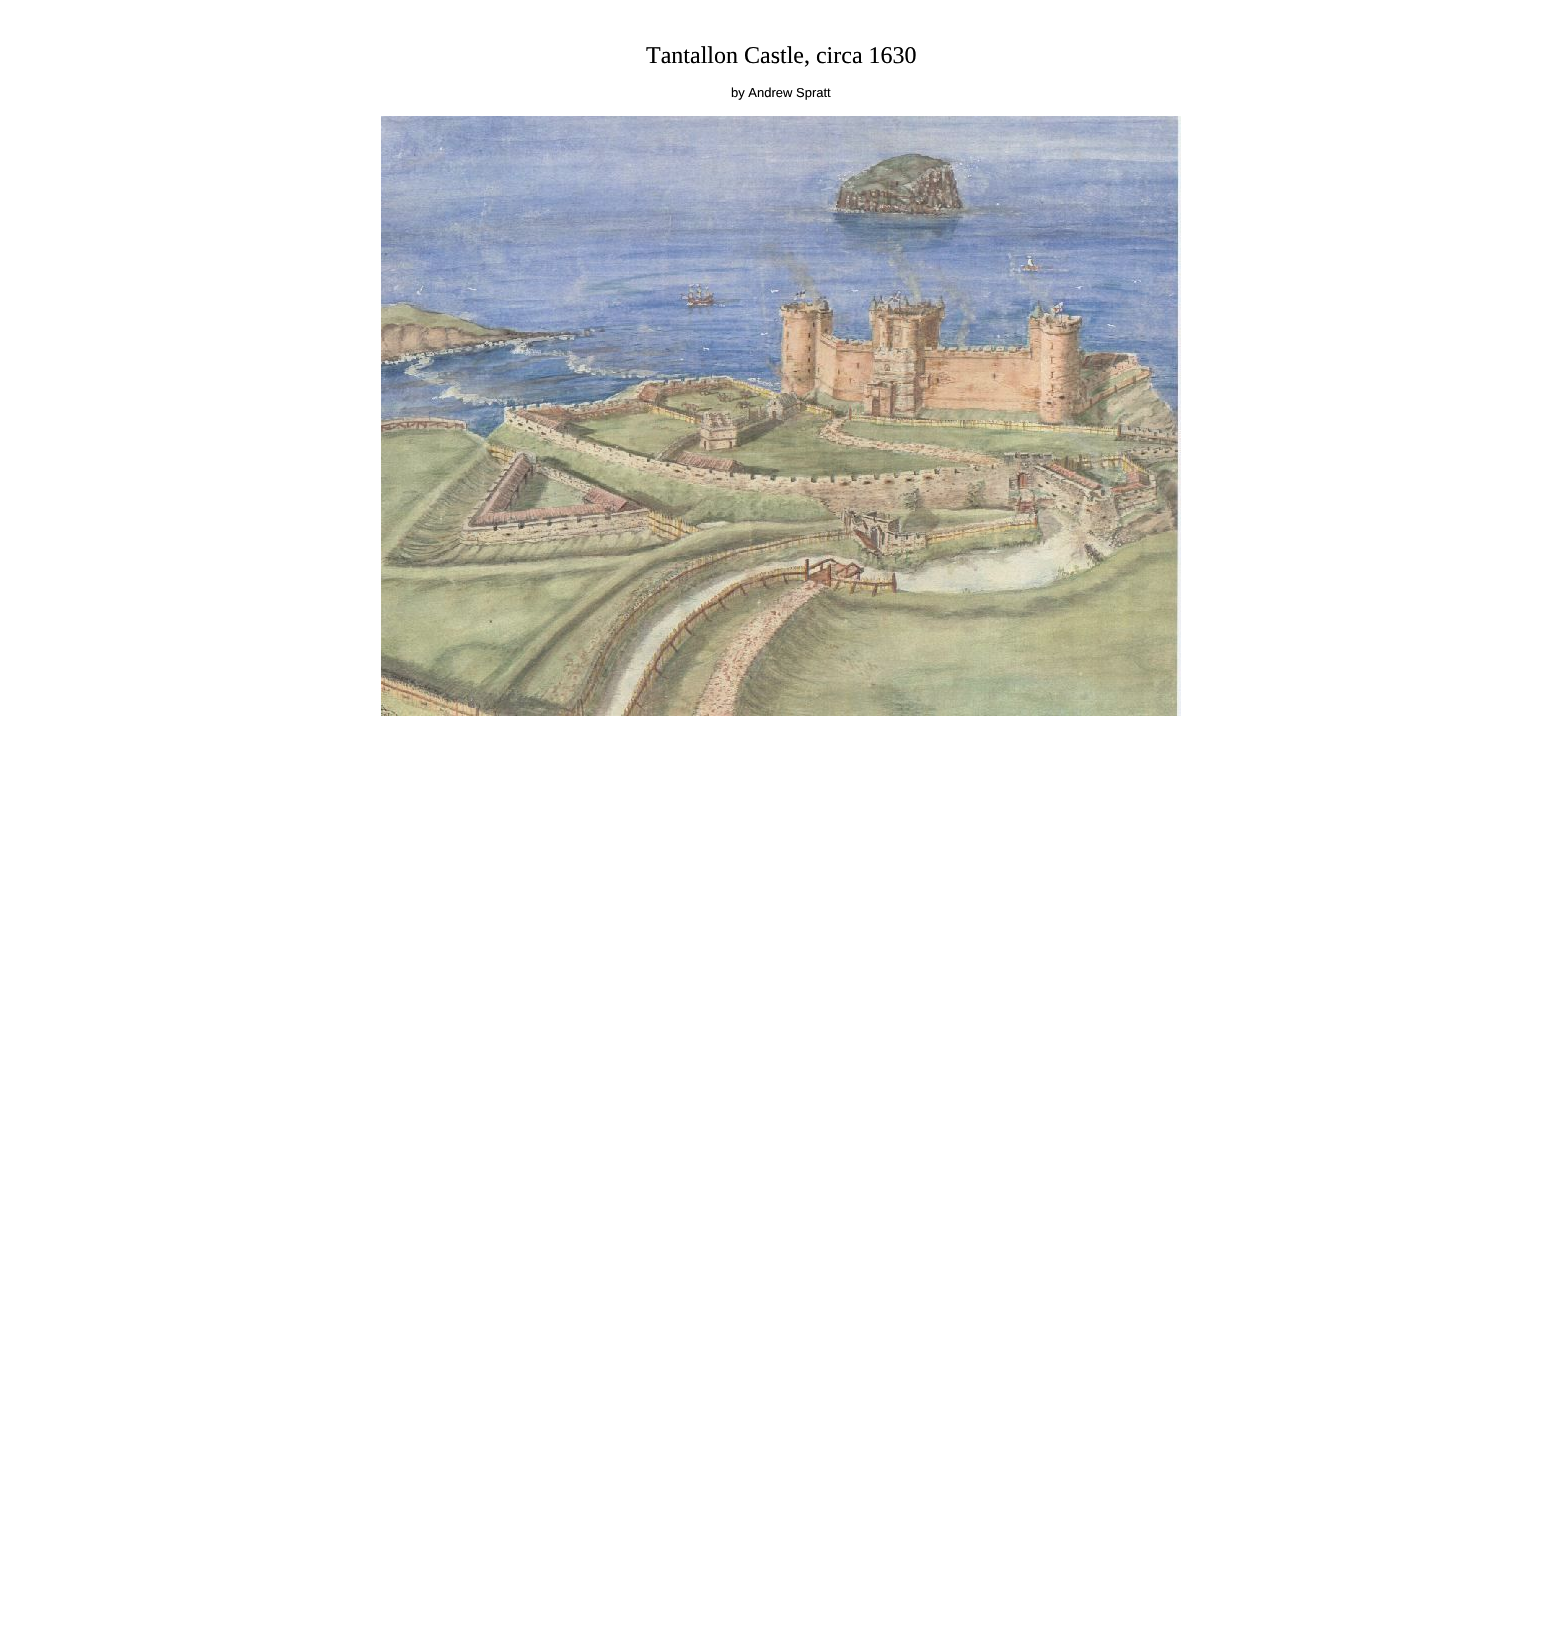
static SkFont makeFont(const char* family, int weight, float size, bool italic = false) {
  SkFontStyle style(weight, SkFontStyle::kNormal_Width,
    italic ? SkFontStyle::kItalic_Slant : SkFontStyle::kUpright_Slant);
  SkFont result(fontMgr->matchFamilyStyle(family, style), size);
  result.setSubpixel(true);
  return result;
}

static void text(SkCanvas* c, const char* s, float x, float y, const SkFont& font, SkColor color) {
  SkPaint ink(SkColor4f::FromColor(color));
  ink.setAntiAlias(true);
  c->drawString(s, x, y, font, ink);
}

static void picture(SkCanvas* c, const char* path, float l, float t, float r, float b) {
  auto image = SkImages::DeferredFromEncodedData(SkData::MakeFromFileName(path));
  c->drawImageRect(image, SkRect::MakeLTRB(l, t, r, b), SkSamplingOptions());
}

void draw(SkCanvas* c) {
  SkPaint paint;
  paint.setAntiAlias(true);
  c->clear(0xffffffff);
  SkFont face1 = makeFont("Liberation Serif", 400, 24);
  text(c, "Tantallon Castle, circa 1630", 646, 63, face1, 0xff000000);
  SkFont face2 = makeFont("Liberation Sans", 400, 13);
  text(c, "by Andrew Spratt", 731, 97, face2, 0xff000000);
  picture(c, "img_01.png", 381, 116, 1181, 716);
}
